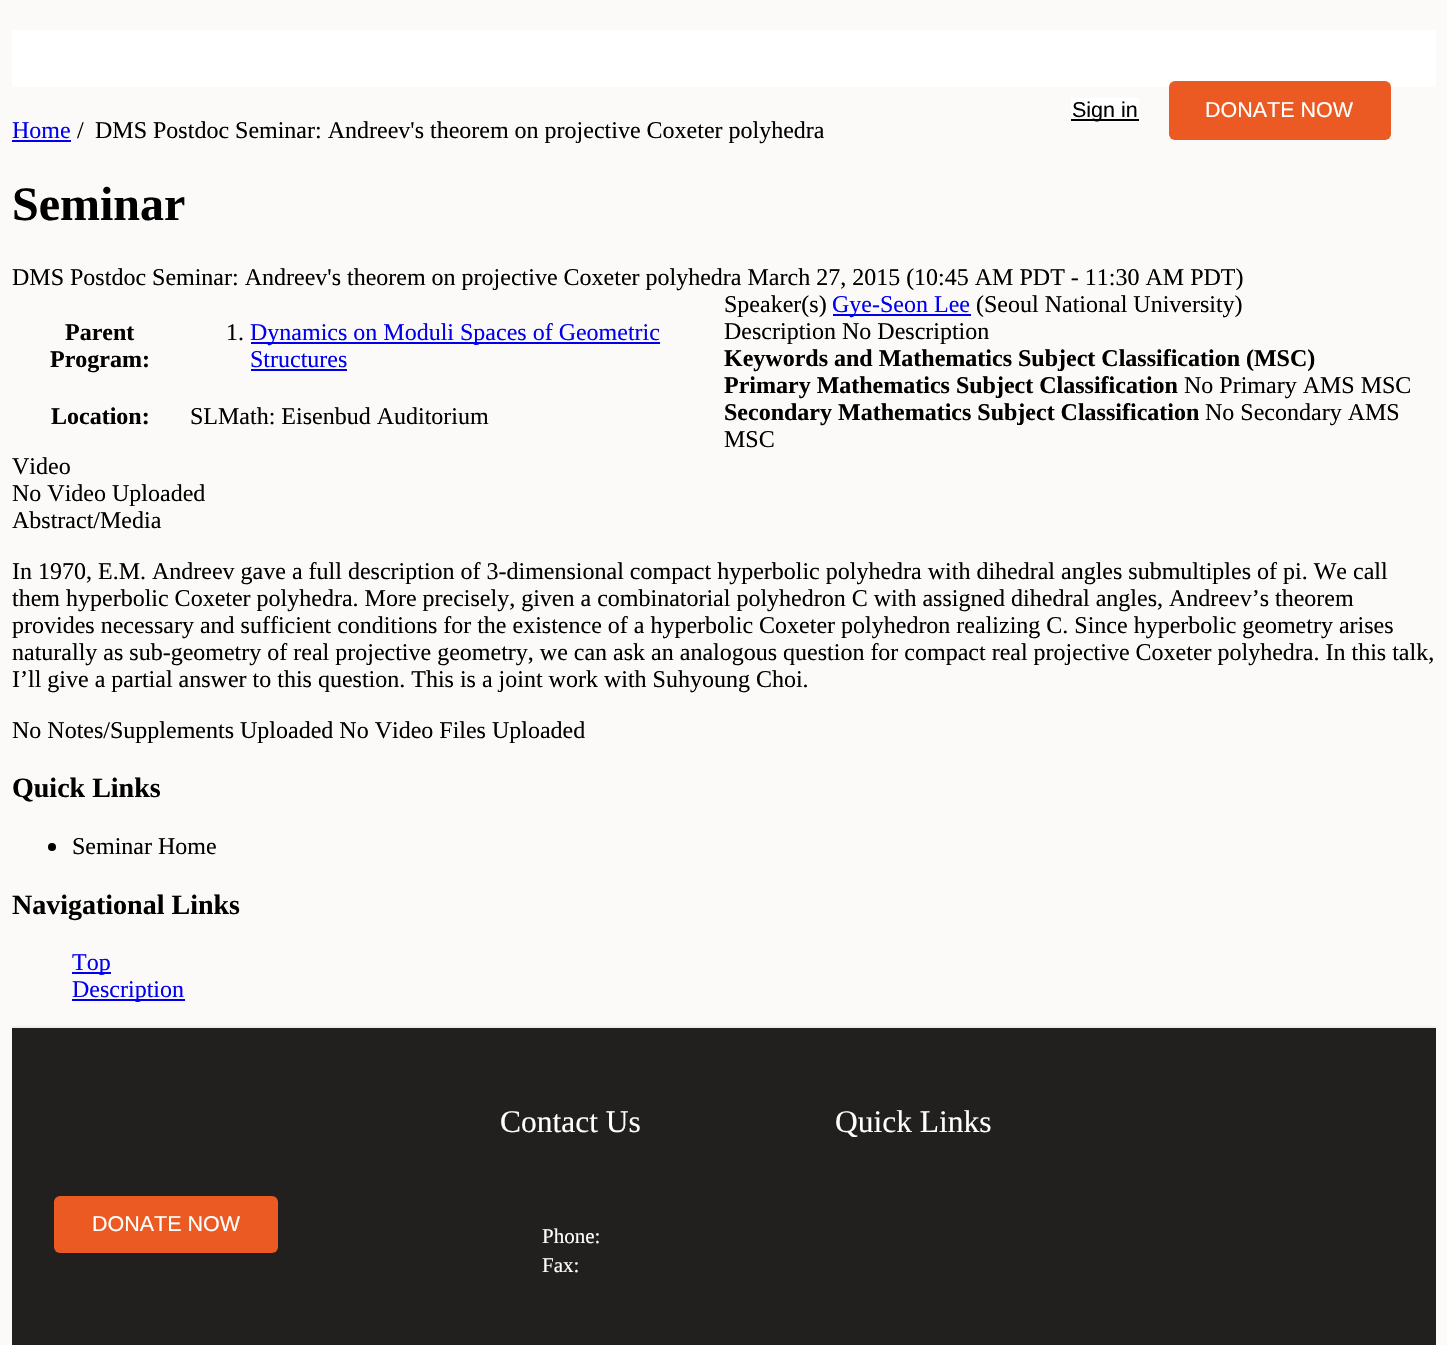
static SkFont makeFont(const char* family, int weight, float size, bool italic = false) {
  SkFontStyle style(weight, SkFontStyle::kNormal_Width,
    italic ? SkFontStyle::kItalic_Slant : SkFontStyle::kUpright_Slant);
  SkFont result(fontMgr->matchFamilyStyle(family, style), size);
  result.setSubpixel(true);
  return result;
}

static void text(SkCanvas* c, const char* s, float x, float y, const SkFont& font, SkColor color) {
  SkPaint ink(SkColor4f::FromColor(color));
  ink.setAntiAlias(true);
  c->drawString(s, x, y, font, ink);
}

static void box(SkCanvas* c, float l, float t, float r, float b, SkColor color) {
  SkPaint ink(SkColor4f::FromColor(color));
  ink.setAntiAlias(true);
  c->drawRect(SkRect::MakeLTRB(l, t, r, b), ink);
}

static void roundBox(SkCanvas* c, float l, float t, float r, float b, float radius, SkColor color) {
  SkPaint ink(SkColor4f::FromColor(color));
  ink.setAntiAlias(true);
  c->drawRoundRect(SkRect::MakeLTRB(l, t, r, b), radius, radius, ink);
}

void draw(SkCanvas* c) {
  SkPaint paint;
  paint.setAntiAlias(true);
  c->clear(0xfffcfaf8);
  box(c, 12, 30, 1436, 87, 0xffffffff);
  box(c, 1071, 98, 1139, 122, 0xffffffff);
  box(c, 1071, 119, 1139, 121, 0xff000000);
  SkFont face1 = makeFont("Liberation Sans", 400, 21.5f);
  text(c, "Sign in", 1072, 117, face1, 0xff000000);
  roundBox(c, 1169, 81, 1391, 140, 6, 0xffeb5a23);
  text(c, "DONATE NOW", 1205, 117, face1, 0xffffffff);
  SkFont face2 = makeFont("Liberation Serif", 400, 24);
  text(c, "Home", 12, 138, face2, 0xff0000ee);
  box(c, 12, 140, 71, 142, 0xff0000ee);
  text(c, "/", 77, 138, face2, 0xff000000);
  text(c, "DMS Postdoc Seminar: Andreev's theorem on projective Coxeter polyhedra", 95, 138, face2, 0xff000000);
  SkFont face3 = makeFont("Liberation Serif", 700, 48);
  text(c, "Seminar", 12, 220, face3, 0xff000000);
  text(c, "DMS Postdoc Seminar: Andreev's theorem on projective Coxeter polyhedra March 27, 2015 (10:45 AM PDT - 11:30 AM PDT)", 12, 285, face2, 0xff000000);
  SkFont face4 = makeFont("Liberation Serif", 700, 24);
  text(c, "Parent", 65, 340, face4, 0xff000000);
  text(c, "Program:", 50, 367, face4, 0xff000000);
  text(c, "1.", 226, 340, face2, 0xff000000);
  box(c, 251, 342, 660, 344, 0xff0000ee);
  text(c, "Dynamics on Moduli Spaces of Geometric", 250, 340, face2, 0xff0000ee);
  text(c, "Structures", 250, 367, face2, 0xff0000ee);
  box(c, 251, 369, 347, 371, 0xff0000ee);
  text(c, "Location:", 51, 424, face4, 0xff000000);
  text(c, "SLMath: Eisenbud Auditorium", 190, 424, face2, 0xff000000);
  text(c, "Speaker(s)", 724, 312, face2, 0xff000000);
  box(c, 833, 314, 971, 316, 0xff0000ee);
  text(c, "Gye-Seon Lee", 832, 312, face2, 0xff0000ee);
  text(c, "(Seoul National University)", 976, 312, face2, 0xff000000);
  text(c, "Description No Description", 724, 339, face2, 0xff000000);
  text(c, "Keywords and Mathematics Subject Classification (MSC)", 724, 366, face4, 0xff000000);
  text(c, "Primary Mathematics Subject Classification", 724, 393, face4, 0xff000000);
  text(c, "No Primary AMS MSC", 1184, 393, face2, 0xff000000);
  text(c, "Secondary Mathematics Subject Classification", 724, 420, face4, 0xff000000);
  text(c, "No Secondary AMS", 1205, 420, face2, 0xff000000);
  text(c, "MSC", 724, 447, face2, 0xff000000);
  text(c, "Video", 12, 474, face2, 0xff000000);
  text(c, "No Video Uploaded", 12, 501, face2, 0xff000000);
  text(c, "Abstract/Media", 12, 528, face2, 0xff000000);
  text(c, "In 1970, E.M. Andreev gave a full description of 3-dimensional compact hyperbolic polyhedra with dihedral angles submultiples of pi. We call", 12, 579, face2, 0xff000000);
  text(c, "them hyperbolic Coxeter polyhedra. More precisely, given a combinatorial polyhedron C with assigned dihedral angles, Andreev’s theorem", 12, 606, face2, 0xff000000);
  text(c, "provides necessary and sufficient conditions for the existence of a hyperbolic Coxeter polyhedron realizing C. Since hyperbolic geometry arises", 12, 633, face2, 0xff000000);
  text(c, "naturally as sub-geometry of real projective geometry, we can ask an analogous question for compact real projective Coxeter polyhedra. In this talk,", 12, 660, face2, 0xff000000);
  text(c, "I’ll give a partial answer to this question. This is a joint work with Suhyoung Choi.", 12, 687, face2, 0xff000000);
  text(c, "No Notes/Supplements Uploaded No Video Files Uploaded", 12, 738, face2, 0xff000000);
  SkFont face5 = makeFont("Liberation Serif", 700, 28);
  text(c, "Quick Links", 12, 797, face5, 0xff000000);
  paint.setColor(0xff000000);
  c->drawCircle(52, 847, 4, paint);
  text(c, "Seminar Home", 72, 854, face2, 0xff000000);
  text(c, "Navigational Links", 12, 914, face5, 0xff000000);
  box(c, 72, 972, 111, 974, 0xff0000ee);
  text(c, "Top", 72, 970, face2, 0xff0000ee);
  box(c, 72, 999, 185, 1001, 0xff0000ee);
  text(c, "Description", 72, 997, face2, 0xff0000ee);
  paint.setColor(0xffeeedeb);
  c->drawPath(SkPathBuilder().moveTo(12, 1026).lineTo(12, 1028).lineTo(1436, 1028).lineTo(1436, 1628).lineTo(1436, 1026).close().detach(), paint);
  box(c, 12, 1028, 1436, 1345, 0xff21201f);
  roundBox(c, 54, 1196, 278, 1253, 6, 0xffeb5a23);
  text(c, "DONATE NOW", 92, 1231, face1, 0xffffffff);
  SkFont face6 = makeFont("Liberation Serif", 400, 31.5f);
  text(c, "Contact Us", 500, 1132, face6, 0xffffffff);
  SkFont face7 = makeFont("Liberation Serif", 400, 21);
  text(c, "Phone:", 542, 1243, face7, 0xffffffff);
  text(c, "Fax:", 542, 1272, face7, 0xffffffff);
  text(c, "Quick Links", 835, 1132, face6, 0xffffffff);
}
